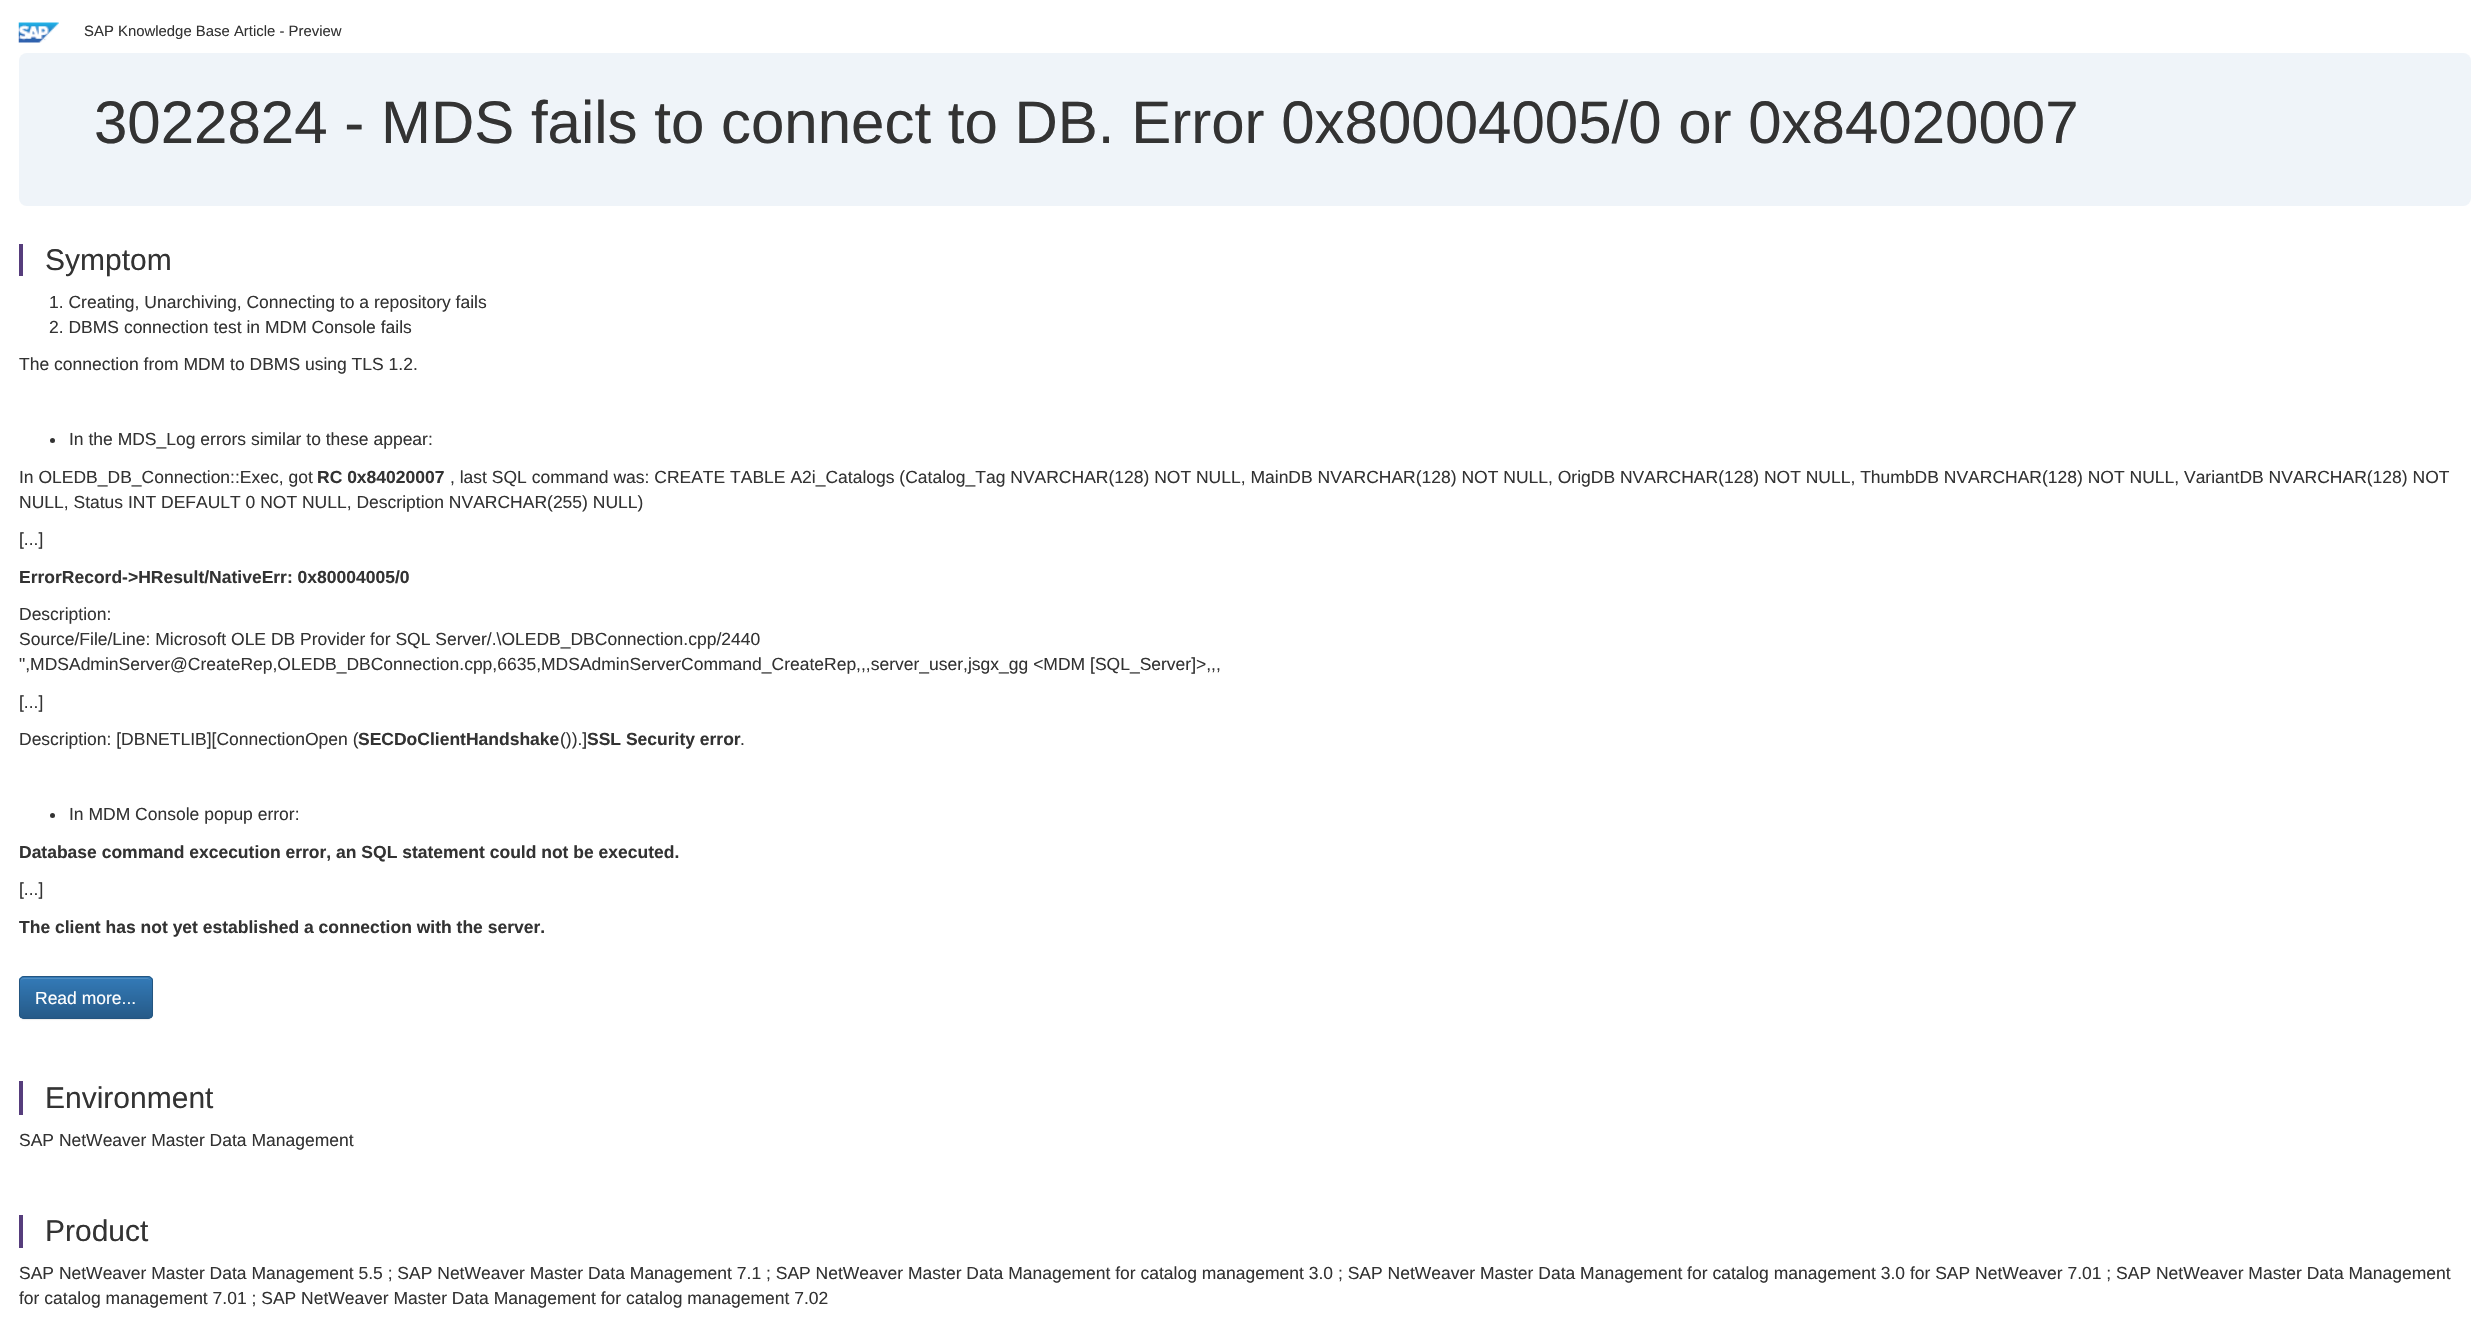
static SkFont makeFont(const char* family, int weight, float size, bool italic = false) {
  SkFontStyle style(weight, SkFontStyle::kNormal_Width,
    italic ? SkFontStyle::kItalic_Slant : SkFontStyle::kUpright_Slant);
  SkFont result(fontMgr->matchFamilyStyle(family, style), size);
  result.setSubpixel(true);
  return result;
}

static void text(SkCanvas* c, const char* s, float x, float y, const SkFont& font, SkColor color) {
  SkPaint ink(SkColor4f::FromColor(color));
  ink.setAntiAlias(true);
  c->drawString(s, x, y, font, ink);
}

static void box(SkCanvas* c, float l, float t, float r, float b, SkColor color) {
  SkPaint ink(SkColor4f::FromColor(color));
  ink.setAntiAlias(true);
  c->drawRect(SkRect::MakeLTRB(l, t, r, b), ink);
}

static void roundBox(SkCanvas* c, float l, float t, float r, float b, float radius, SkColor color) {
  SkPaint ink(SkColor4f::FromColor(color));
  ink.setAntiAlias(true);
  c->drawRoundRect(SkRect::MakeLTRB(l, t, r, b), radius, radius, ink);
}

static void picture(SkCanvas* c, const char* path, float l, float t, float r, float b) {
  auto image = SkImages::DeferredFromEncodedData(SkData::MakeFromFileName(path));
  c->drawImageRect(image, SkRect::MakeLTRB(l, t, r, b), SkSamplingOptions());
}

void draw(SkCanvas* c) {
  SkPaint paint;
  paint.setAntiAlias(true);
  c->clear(0xffffffff);
  picture(c, "img_01.png", 18, 22, 59, 43);
  SkFont face1 = makeFont("Liberation Sans", 400, 14.9f);
  text(c, "SAP Knowledge Base Article - Preview", 84, 36, face1, 0xff333333);
  roundBox(c, 19, 53, 2471, 206, 8, 0xffeff4f9);
  SkFont face2 = makeFont("Liberation Sans", 400, 60);
  text(c, "3022824 - MDS fails to connect to DB. Error 0x80004005/0 or 0x84020007", 94, 143, face2, 0xff333333);
  box(c, 19, 244, 23, 276, 0xff563d7c);
  SkFont face3 = makeFont("Liberation Sans", 400, 30);
  text(c, "Symptom", 45, 270, face3, 0xff333333);
  SkFont face4 = makeFont("Liberation Sans", 400, 17.5f);
  text(c, "1. Creating, Unarchiving, Connecting to a repository fails", 49, 308, face4, 0xff333333);
  text(c, "2. DBMS connection test in MDM Console fails", 49, 333, face4, 0xff333333);
  text(c, "The connection from MDM to DBMS using TLS 1.2.", 19, 370, face4, 0xff333333);
  paint.setColor(0xff333333);
  c->drawCircle(52.5f, 440.5f, 2.5f, paint);
  text(c, "In the MDS_Log errors similar to these appear:", 69, 445, face4, 0xff333333);
  text(c, "In OLEDB_DB_Connection::Exec, got", 19, 483, face4, 0xff333333);
  SkFont face5 = makeFont("Liberation Sans", 700, 17.5f);
  text(c, "RC 0x84020007", 317, 483, face5, 0xff333333);
  text(c, ", last SQL command was: CREATE TABLE A2i_Catalogs (Catalog_Tag NVARCHAR(128) NOT NULL, MainDB NVARCHAR(128) NOT NULL, OrigDB NVARCHAR(128) NOT NULL, ThumbDB NVARCHAR(128) NOT NULL, VariantDB NVARCHAR(128) NOT", 450, 483, face4, 0xff333333);
  text(c, "NULL, Status INT DEFAULT 0 NOT NULL, Description NVARCHAR(255) NULL)", 19, 508, face4, 0xff333333);
  text(c, "[...]", 19, 545, face4, 0xff333333);
  text(c, "ErrorRecord->HResult/NativeErr: 0x80004005/0", 19, 583, face5, 0xff333333);
  text(c, "Description:", 19, 620, face4, 0xff333333);
  text(c, "Source/File/Line: Microsoft OLE DB Provider for SQL Server/.\\OLEDB_DBConnection.cpp/2440", 19, 645, face4, 0xff333333);
  text(c, "\",MDSAdminServer@CreateRep,OLEDB_DBConnection.cpp,6635,MDSAdminServerCommand_CreateRep,,,server_user,jsgx_gg <MDM [SQL_Server]>,,,", 19, 670, face4, 0xff333333);
  text(c, "[...]", 19, 708, face4, 0xff333333);
  text(c, "Description: [DBNETLIB][ConnectionOpen (", 19, 745, face4, 0xff333333);
  text(c, "SECDoClientHandshake", 358, 745, face5, 0xff333333);
  text(c, "()).]", 560, 745, face4, 0xff333333);
  text(c, "SSL Security error", 587, 745, face5, 0xff333333);
  text(c, ".", 740, 745, face4, 0xff333333);
  c->drawCircle(52.5f, 815.5f, 2.5f, paint);
  text(c, "In MDM Console popup error:", 69, 820, face4, 0xff333333);
  text(c, "Database command excecution error, an SQL statement could not be executed.", 19, 858, face5, 0xff333333);
  text(c, "[...]", 19, 895, face4, 0xff333333);
  text(c, "The client has not yet established a connection with the server.", 19, 933, face5, 0xff333333);
  paint.setColor(0x12000000);
  paint.setMaskFilter(SkMaskFilter::MakeBlur(kNormal_SkBlurStyle, 0.5f));
  c->drawRoundRect(SkRect::MakeLTRB(19, 978, 153, 1020), 5, 5, paint);
  paint.setMaskFilter(nullptr);
  roundBox(c, 19, 976, 153, 1019, 5, 0xff337ab7);
  c->save();
  c->clipPath(SkPathBuilder().moveTo(24, 976).lineTo(148, 976).cubicTo(151, 976, 153, 978, 153, 981).lineTo(153, 1014).cubicTo(153, 1017, 151, 1019, 148, 1019).lineTo(24, 1019).cubicTo(21, 1019, 19, 1017, 19, 1014).lineTo(19, 981).cubicTo(19, 978, 21, 976, 24, 976).close().detach(), true);
  {
    const SkColor colors[] = {0xff337ab7, 0xff265a88};
    const float stops[] = {0, 1};
    const SkPoint ends[] = {{86, 978}, {86, 1018}};
    paint.setShader(SkGradientShader::MakeLinear(ends, colors, stops, 2, SkTileMode::kClamp));
    paint.setAlpha(255);
  }
  c->drawRect(SkRect::MakeLTRB(19, 978, 153, 1018), paint);
  c->restore();
  paint.setShader(nullptr);
  paint.setColor(0xff528ec1);
  c->drawPath(SkPathBuilder().moveTo(24, 979).lineTo(148, 979).lineTo(150, 980).cubicTo(150, 979, 148, 978, 147, 978).lineTo(24, 978).cubicTo(22, 978, 20, 980, 20, 982).cubicTo(20, 980, 22, 979, 24, 979).close().detach(), paint);
  paint.setStyle(SkPaint::kStroke_Style);
  paint.setStrokeWidth(1);
  paint.setColor(0xff245580);
  c->drawRoundRect(SkRect::MakeLTRB(19.5f, 976.5f, 152.5f, 1018.5f), 4.5f, 4.5f, paint);
  text(c, "Read more...", 35, 1004, face4, 0xffffffff);
  box(c, 19, 1081, 23, 1115, 0xff563d7c);
  text(c, "Environment", 45, 1108, face3, 0xff333333);
  text(c, "SAP NetWeaver Master Data Management", 19, 1146, face4, 0xff333333);
  box(c, 19, 1215, 23, 1248, 0xff563d7c);
  text(c, "Product", 45, 1241, face3, 0xff333333);
  text(c, "SAP NetWeaver Master Data Management 5.5 ; SAP NetWeaver Master Data Management 7.1 ; SAP NetWeaver Master Data Management for catalog management 3.0 ; SAP NetWeaver Master Data Management for catalog management 3.0 for SAP NetWeaver 7.01 ; SAP NetWeaver Master Data Management", 19, 1279, face4, 0xff333333);
  text(c, "for catalog management 7.01 ; SAP NetWeaver Master Data Management for catalog management 7.02", 19, 1304, face4, 0xff333333);
}
